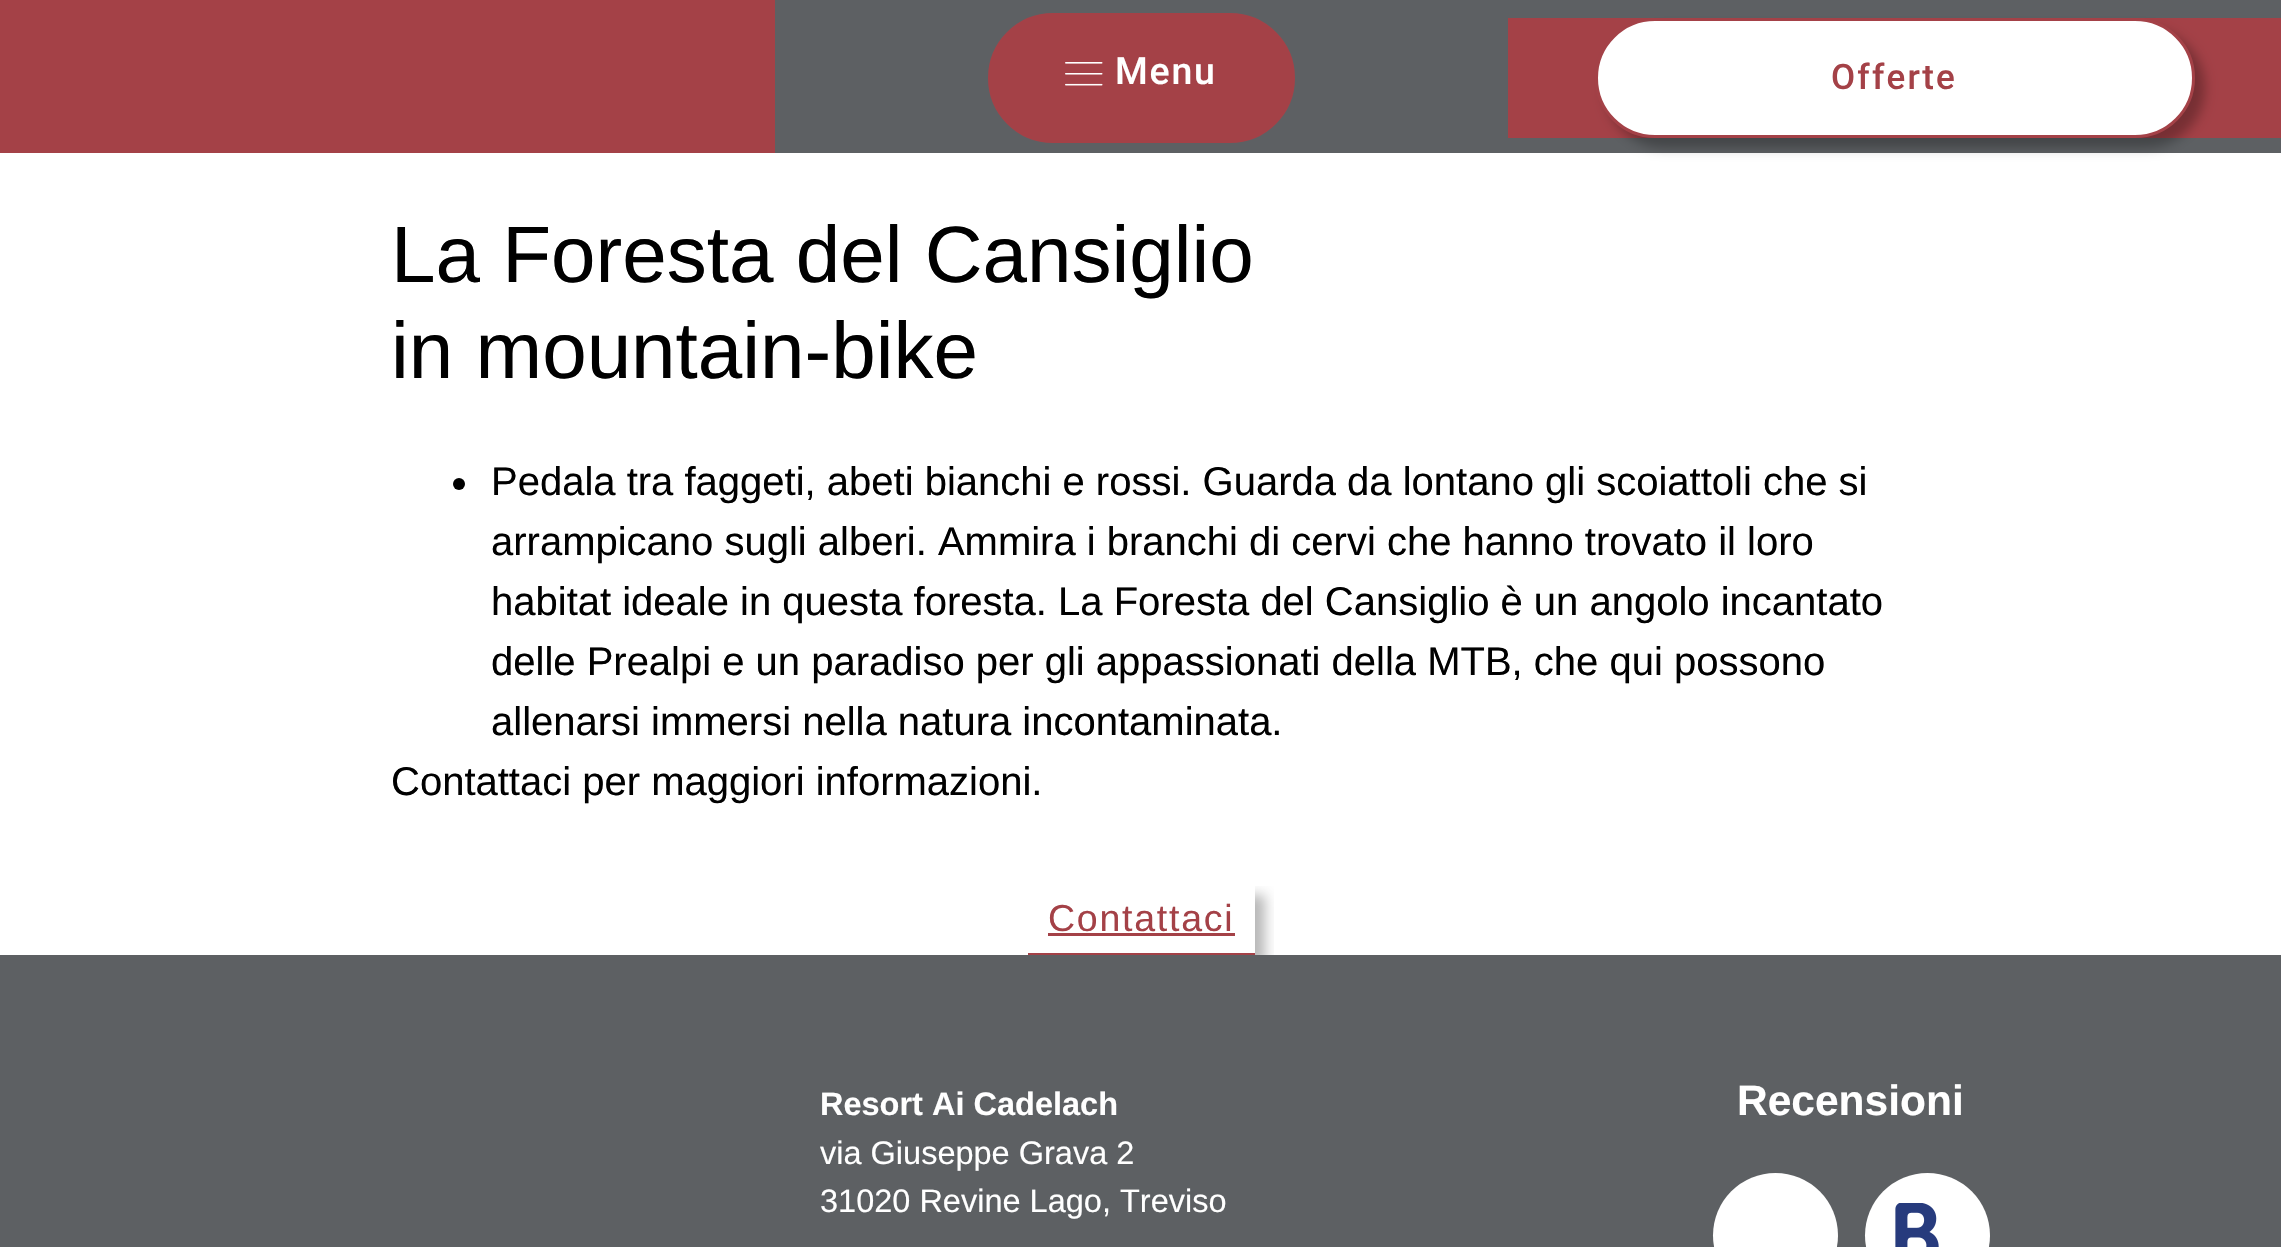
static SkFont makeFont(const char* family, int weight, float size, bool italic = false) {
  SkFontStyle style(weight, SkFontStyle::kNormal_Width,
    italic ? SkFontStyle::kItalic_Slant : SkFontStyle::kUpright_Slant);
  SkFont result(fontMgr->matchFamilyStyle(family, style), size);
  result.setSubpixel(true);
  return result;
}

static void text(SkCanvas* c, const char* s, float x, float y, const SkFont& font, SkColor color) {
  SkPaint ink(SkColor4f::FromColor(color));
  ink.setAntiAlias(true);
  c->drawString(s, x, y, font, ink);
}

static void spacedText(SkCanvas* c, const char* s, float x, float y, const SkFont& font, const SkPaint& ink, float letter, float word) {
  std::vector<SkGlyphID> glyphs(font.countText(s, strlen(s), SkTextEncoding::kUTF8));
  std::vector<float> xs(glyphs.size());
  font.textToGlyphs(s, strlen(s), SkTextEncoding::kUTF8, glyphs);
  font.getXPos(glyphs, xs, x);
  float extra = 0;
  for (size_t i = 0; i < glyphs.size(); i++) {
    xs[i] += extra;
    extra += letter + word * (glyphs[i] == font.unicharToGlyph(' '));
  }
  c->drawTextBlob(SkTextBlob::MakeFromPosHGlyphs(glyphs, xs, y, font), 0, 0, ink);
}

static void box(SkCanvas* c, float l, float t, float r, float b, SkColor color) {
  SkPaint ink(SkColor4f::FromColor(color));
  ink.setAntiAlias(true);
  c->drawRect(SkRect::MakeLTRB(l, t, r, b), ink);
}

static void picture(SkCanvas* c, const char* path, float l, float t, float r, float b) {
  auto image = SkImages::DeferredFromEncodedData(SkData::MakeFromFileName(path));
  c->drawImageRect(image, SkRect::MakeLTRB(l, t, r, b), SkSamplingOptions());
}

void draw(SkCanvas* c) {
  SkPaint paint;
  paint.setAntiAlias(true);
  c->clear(0xffffffff);
  box(c, 775, 0, 2281, 153, 0xff5d6063);
  box(c, 0, 0, 775, 153, 0xffa44147);
  paint.setColor(0xffa44147);
  c->drawRoundRect(SkRect::MakeLTRB(989.5f, 14.5f, 1293.5f, 141.5f), 63.5f, 63.5f, paint);
  paint.setStyle(SkPaint::kStroke_Style);
  paint.setStrokeWidth(3);
  c->drawRoundRect(SkRect::MakeLTRB(989.5f, 14.5f, 1293.5f, 141.5f), 63.5f, 63.5f, paint);
  picture(c, "img_01.png", 1065, 62, 1103, 86);
  SkFont face1 = makeFont("Roboto", 500, 37.5f);
  paint.setStyle(SkPaint::kFill_Style);
  paint.setColor(0xffffffff);
  spacedText(c, "Menu", 1115, 84, face1, paint, 1.75f, 0);
  box(c, 1508, 18, 2281, 138, 0xffa44147);
  paint.setColor(0x47000000);
  paint.setMaskFilter(SkMaskFilter::MakeBlur(kNormal_SkBlurStyle, 6));
  c->drawRoundRect(SkRect::MakeLTRB(1605, 28, 2205, 148), 60, 60, paint);
  paint.setMaskFilter(nullptr);
  paint.setColor(0xffffffff);
  c->drawRoundRect(SkRect::MakeLTRB(1596.5f, 19.5f, 2193.5f, 136.5f), 58.5f, 58.5f, paint);
  paint.setStyle(SkPaint::kStroke_Style);
  paint.setColor(0xffa44147);
  c->drawRoundRect(SkRect::MakeLTRB(1596.5f, 19.5f, 2193.5f, 136.5f), 58.5f, 58.5f, paint);
  SkFont face2 = makeFont("Roboto", 500, 35);
  paint.setStyle(SkPaint::kFill_Style);
  spacedText(c, "Offerte", 1831, 89, face2, paint, 2.25f, 0);
  SkFont face3 = makeFont("Liberation Sans", 400, 80);
  text(c, "La Foresta del Cansiglio", 391, 282, face3, 0xff000000);
  text(c, "in mountain-bike", 391, 378, face3, 0xff000000);
  paint.setColor(0xff000000);
  c->drawCircle(459, 484, 6, paint);
  SkFont face4 = makeFont("Liberation Sans", 400, 40);
  text(c, "Pedala tra faggeti, abeti bianchi e rossi. Guarda da lontano gli scoiattoli che si", 491, 495, face4, 0xff000000);
  text(c, "arrampicano sugli alberi. Ammira i branchi di cervi che hanno trovato il loro", 491, 555, face4, 0xff000000);
  text(c, "habitat ideale in questa foresta. La Foresta del Cansiglio è un angolo incantato", 491, 615, face4, 0xff000000);
  text(c, "delle Prealpi e un paradiso per gli appassionati della MTB, che qui possono", 491, 675, face4, 0xff000000);
  text(c, "allenarsi immersi nella natura incontaminata.", 491, 735, face4, 0xff000000);
  text(c, "Contattaci per maggiori informazioni.", 391, 795, face4, 0xff000000);
  c->save();
  c->clipRect(SkRect::MakeLTRB(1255, 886, 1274, 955));
  paint.setColor(0x47000000);
  paint.setMaskFilter(SkMaskFilter::MakeBlur(kNormal_SkBlurStyle, 6));
  c->drawRect(SkRect::MakeLTRB(1038, 895, 1265, 965), paint);
  paint.setMaskFilter(nullptr);
  c->restore();
  box(c, 1028, 953, 1255, 955, 0xffa44147);
  SkFont face5 = makeFont("Liberation Sans", 400, 37.5f);
  paint.setColor(0xffa44147);
  spacedText(c, "Contattaci", 1048, 931, face5, paint, 1.75f, 0);
  box(c, 1048, 933, 1235, 936, 0xffa44147);
  box(c, 0, 955, 2281, 1247, 0xff5d6063);
  SkFont face6 = makeFont("Liberation Sans", 700, 32.5f);
  text(c, "Resort Ai Cadelach", 820, 1115, face6, 0xffffffff);
  SkFont face7 = makeFont("Liberation Sans", 400, 32.5f);
  text(c, "via Giuseppe Grava 2", 820, 1164, face7, 0xffffffff);
  text(c, "31020 Revine Lago, Treviso", 820, 1212, face7, 0xffffffff);
  SkFont face8 = makeFont("Liberation Sans", 700, 42.5f);
  text(c, "Recensioni", 1737, 1115, face8, 0xffffffff);
  paint.setColor(0xffffffff);
  c->drawCircle(1775.5f, 1235.5f, 62.5f, paint);
  c->drawCircle(1927.5f, 1235.5f, 62.5f, paint);
  picture(c, "img_02.png", 1895, 1203, 1939, 1247);
}
